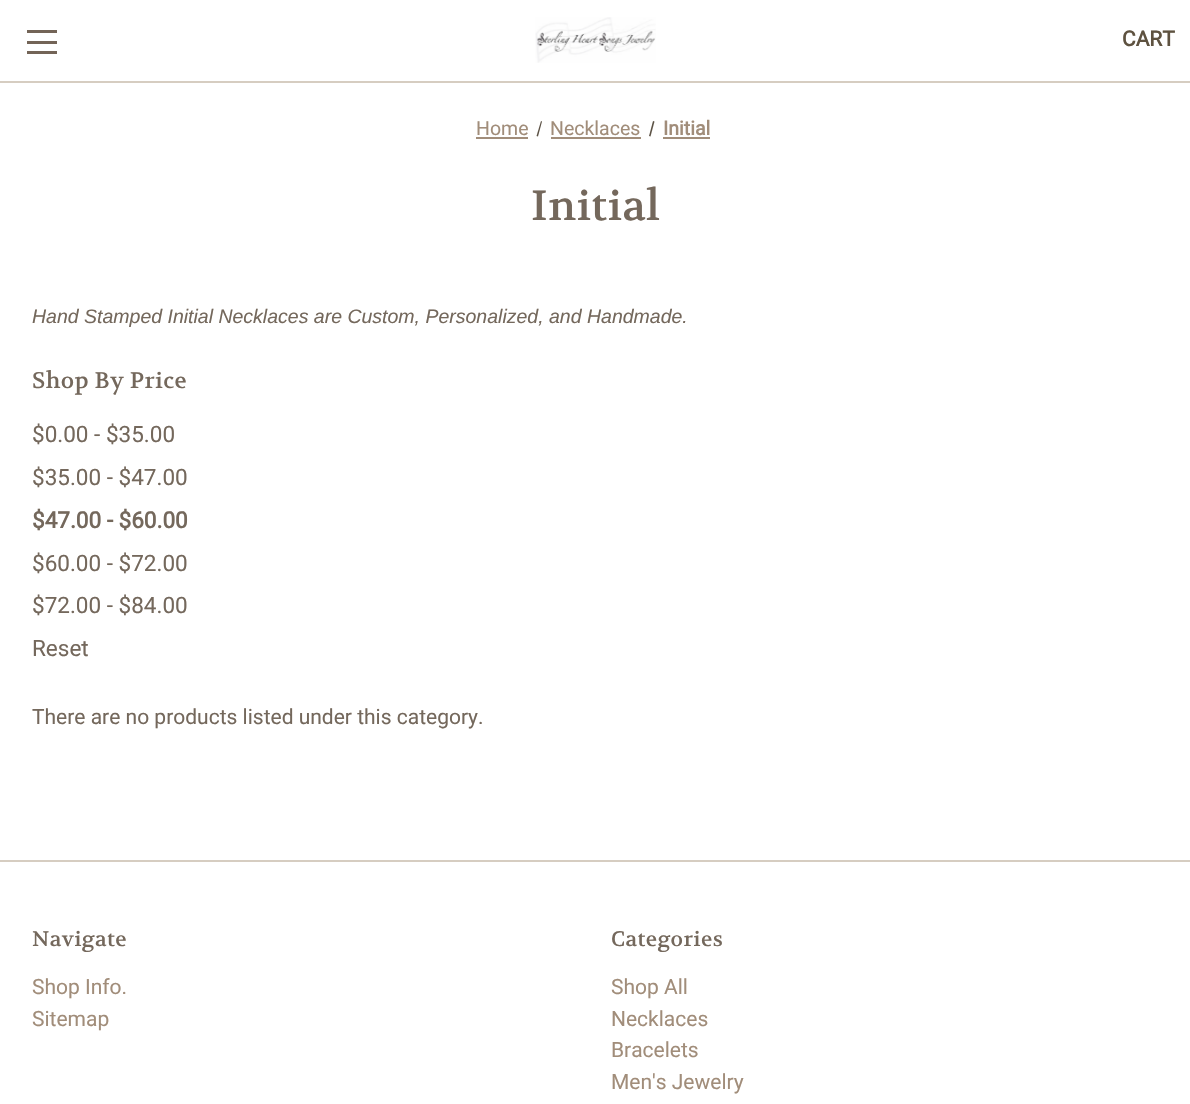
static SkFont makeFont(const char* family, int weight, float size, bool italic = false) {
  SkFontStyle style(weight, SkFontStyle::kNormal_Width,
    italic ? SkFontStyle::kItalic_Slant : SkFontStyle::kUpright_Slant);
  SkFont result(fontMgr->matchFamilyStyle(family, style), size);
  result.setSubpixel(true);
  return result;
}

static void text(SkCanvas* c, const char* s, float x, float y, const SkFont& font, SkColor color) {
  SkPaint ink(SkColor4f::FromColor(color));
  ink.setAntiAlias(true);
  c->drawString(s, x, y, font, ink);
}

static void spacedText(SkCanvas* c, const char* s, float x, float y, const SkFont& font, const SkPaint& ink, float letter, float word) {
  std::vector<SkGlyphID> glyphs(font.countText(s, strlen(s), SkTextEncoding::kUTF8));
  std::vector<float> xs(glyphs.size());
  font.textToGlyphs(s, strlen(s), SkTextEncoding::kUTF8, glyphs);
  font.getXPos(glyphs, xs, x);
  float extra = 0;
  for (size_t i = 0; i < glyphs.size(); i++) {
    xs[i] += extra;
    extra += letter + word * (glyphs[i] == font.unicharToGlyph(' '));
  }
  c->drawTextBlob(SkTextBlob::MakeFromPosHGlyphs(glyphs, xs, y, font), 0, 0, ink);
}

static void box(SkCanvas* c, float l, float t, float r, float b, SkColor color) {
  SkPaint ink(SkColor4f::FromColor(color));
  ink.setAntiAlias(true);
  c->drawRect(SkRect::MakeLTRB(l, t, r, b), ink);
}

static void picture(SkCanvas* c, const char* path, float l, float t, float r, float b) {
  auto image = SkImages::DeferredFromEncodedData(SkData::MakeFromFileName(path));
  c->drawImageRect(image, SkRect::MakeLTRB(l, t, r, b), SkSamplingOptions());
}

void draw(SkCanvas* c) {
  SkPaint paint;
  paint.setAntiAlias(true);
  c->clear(0xffffffff);
  box(c, 0, 81, 1190, 83, 0xffd6cdc1);
  box(c, 27, 41, 57, 44, 0xff736457);
  box(c, 27, 30, 57, 33, 0xff736457);
  box(c, 27, 51, 57, 54, 0xff736457);
  picture(c, "img_01.png", 535, 17, 656, 63);
  SkFont face1 = makeFont("Roboto", 700, 21);
  text(c, "CART", 1122, 46, face1, 0xff5e5240);
  SkFont face2 = makeFont("Roboto", 400, 19.5f);
  text(c, "Home", 476, 135, face2, 0xffa18d7a);
  box(c, 476, 137, 528, 139, 0xffa18d7a);
  paint.setColor(0xff5c5245);
  c->drawPath(SkPathBuilder().moveTo(541, 121).lineTo(542, 121.5f).lineTo(538, 136.5f).lineTo(536.5f, 136).close().detach(), paint);
  text(c, "Necklaces", 550, 135, face2, 0xffa18d7a);
  box(c, 551, 137, 641, 139, 0xffa18d7a);
  c->drawPath(SkPathBuilder().moveTo(653, 121).lineTo(654.5f, 121.5f).lineTo(650.5f, 136.5f).lineTo(649, 136).close().detach(), paint);
  SkFont face3 = makeFont("Roboto", 700, 19.5f);
  text(c, "Initial", 663, 135, face3, 0xffa18d7a);
  box(c, 663, 137, 710, 139, 0xffa18d7a);
  SkFont face4 = makeFont("Volkhov", 400, 42);
  paint.setColor(0xff74685c);
  spacedText(c, "Initial", 531, 220, face4, paint, 0.4f, 0);
  SkFont face5 = makeFont("Liberation Sans", 400, 19.5f, true);
  text(c, "Hand Stamped Initial Necklaces are Custom, Personalized, and Handmade.", 32, 323, face5, 0xff74685c);
  SkFont face6 = makeFont("Volkhov", 400, 22.5f);
  spacedText(c, "Shop By Price", 32, 388, face6, paint, 0.4f, 0);
  SkFont face7 = makeFont("Roboto", 400, 22.5f);
  text(c, "$0.00 - $35.00", 32, 442, face7, 0xff74685c);
  text(c, "$35.00 - $47.00", 32, 485, face7, 0xff74685c);
  SkFont face8 = makeFont("Roboto", 700, 22.5f);
  text(c, "$47.00 - $60.00", 32, 528, face8, 0xff74685c);
  text(c, "$60.00 - $72.00", 32, 571, face7, 0xff74685c);
  text(c, "$72.00 - $84.00", 32, 613, face7, 0xff74685c);
  text(c, "Reset", 32, 656, face7, 0xff74685c);
  SkFont face9 = makeFont("Roboto", 400, 21);
  text(c, "There are no products listed under this category.", 32, 724, face9, 0xff74685c);
  box(c, 0, 860, 1190, 862, 0xffd6cdc1);
  SkFont face10 = makeFont("Volkhov", 400, 21);
  spacedText(c, "Navigate", 32, 946, face10, paint, 0.4f, 0);
  text(c, "Shop Info.", 32, 994, face9, 0xffa18d7a);
  text(c, "Sitemap", 32, 1026, face9, 0xffa18d7a);
  spacedText(c, "Categories", 611, 946, face10, paint, 0.4f, 0);
  text(c, "Shop All", 611, 994, face9, 0xffa18d7a);
  text(c, "Necklaces", 611, 1026, face9, 0xffa18d7a);
  text(c, "Bracelets", 611, 1057, face9, 0xffa18d7a);
  text(c, "Men's Jewelry", 611, 1089, face9, 0xffa18d7a);
}
